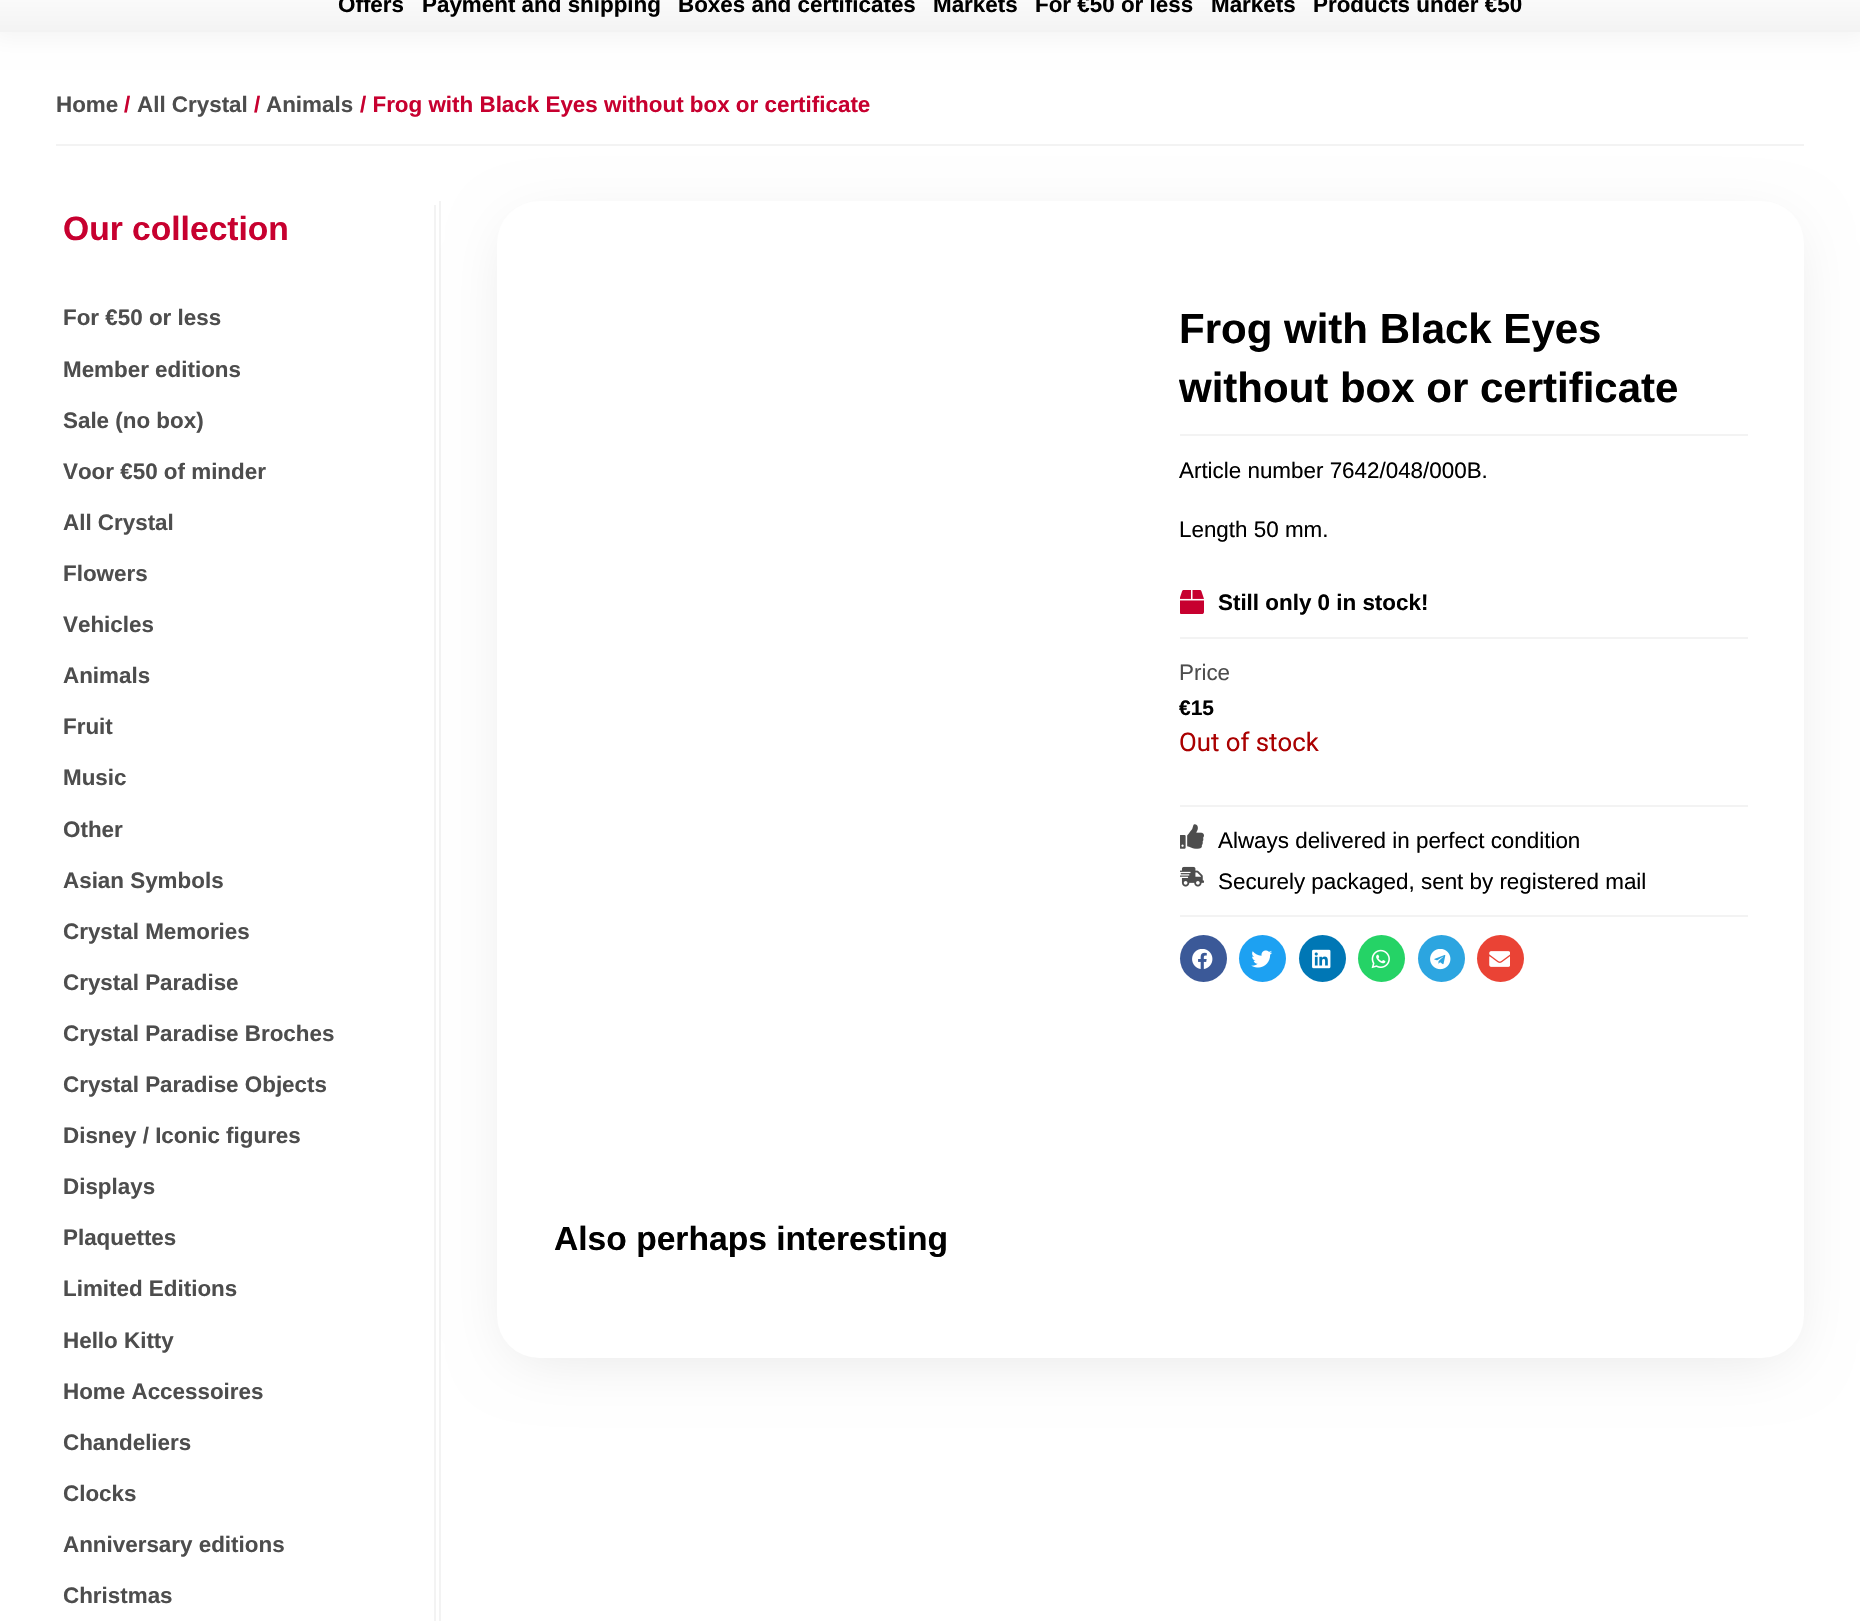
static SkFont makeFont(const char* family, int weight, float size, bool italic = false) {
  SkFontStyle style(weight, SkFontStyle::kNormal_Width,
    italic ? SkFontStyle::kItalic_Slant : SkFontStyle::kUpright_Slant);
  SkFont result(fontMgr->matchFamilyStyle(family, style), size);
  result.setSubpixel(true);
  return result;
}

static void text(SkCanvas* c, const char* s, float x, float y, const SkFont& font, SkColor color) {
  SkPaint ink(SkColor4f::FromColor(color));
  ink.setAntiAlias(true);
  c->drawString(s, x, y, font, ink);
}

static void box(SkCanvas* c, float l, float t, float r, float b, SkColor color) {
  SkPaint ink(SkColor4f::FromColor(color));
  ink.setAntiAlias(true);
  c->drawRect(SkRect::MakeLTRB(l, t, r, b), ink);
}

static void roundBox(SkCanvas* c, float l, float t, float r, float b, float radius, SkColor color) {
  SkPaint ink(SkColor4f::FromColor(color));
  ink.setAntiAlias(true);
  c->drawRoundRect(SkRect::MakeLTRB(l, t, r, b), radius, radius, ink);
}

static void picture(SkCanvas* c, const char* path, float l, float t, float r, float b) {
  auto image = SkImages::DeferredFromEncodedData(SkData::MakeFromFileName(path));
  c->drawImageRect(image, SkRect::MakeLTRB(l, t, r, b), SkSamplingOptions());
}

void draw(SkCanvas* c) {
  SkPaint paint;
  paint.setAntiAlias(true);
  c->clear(0xffffffff);
  paint.setColor(0x0a000000);
  paint.setMaskFilter(SkMaskFilter::MakeBlur(kNormal_SkBlurStyle, 10.5f));
  c->drawRect(SkRect::MakeLTRB(-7, -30, 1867, 39), paint);
  paint.setMaskFilter(nullptr);
  {
    const SkColor colors[] = {0xffffffff, 0xfff3f3f3};
    const float stops[] = {0, 1};
    const SkPoint ends[] = {{930, -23}, {930, 32}};
    paint.setShader(SkGradientShader::MakeLinear(ends, colors, stops, 2, SkTileMode::kClamp));
    paint.setAlpha(255);
  }
  c->drawRect(SkRect::MakeLTRB(0, 0, 1860, 32), paint);
  SkFont face1 = makeFont("Liberation Sans", 700, 22.4f);
  text(c, "Offers", 338, 12, face1, 0xff000000);
  text(c, "Payment and shipping", 422, 12, face1, 0xff000000);
  text(c, "Boxes and certificates", 678, 12, face1, 0xff000000);
  text(c, "Markets", 933, 12, face1, 0xff000000);
  text(c, "For €50 or less", 1035, 12, face1, 0xff000000);
  text(c, "Markets", 1211, 12, face1, 0xff000000);
  text(c, "Products under €50", 1313, 12, face1, 0xff000000);
  box(c, 56, 144, 1804, 146, 0xfff3f3f3);
  text(c, "Home", 56, 112, face1, 0xff4d4d4d);
  text(c, "/", 124, 112, face1, 0xffc7002f);
  text(c, "All Crystal", 137, 112, face1, 0xff4d4d4d);
  text(c, "/", 254, 112, face1, 0xffc7002f);
  text(c, "Animals", 266, 112, face1, 0xff4d4d4d);
  text(c, "/ Frog with Black Eyes without box or certificate", 360, 112, face1, 0xffc7002f);
  box(c, 439, 201, 441, 1621, 0xfff3f3f3);
  box(c, 434, 205, 436, 1621, 0xfff3f3f3);
  SkFont face2 = makeFont("Liberation Sans", 700, 33.6f);
  text(c, "Our collection", 63, 240, face2, 0xffc7002f);
  text(c, "For €50 or less", 63, 325, face1, 0xff4d4d4d);
  text(c, "Member editions", 63, 377, face1, 0xff4d4d4d);
  text(c, "Sale (no box)", 63, 428, face1, 0xff4d4d4d);
  text(c, "Voor €50 of minder", 63, 479, face1, 0xff4d4d4d);
  text(c, "All Crystal", 63, 530, face1, 0xff4d4d4d);
  text(c, "Flowers", 63, 581, face1, 0xff4d4d4d);
  text(c, "Vehicles", 63, 632, face1, 0xff4d4d4d);
  text(c, "Animals", 63, 683, face1, 0xff4d4d4d);
  text(c, "Fruit", 63, 734, face1, 0xff4d4d4d);
  text(c, "Music", 63, 785, face1, 0xff4d4d4d);
  text(c, "Other", 63, 837, face1, 0xff4d4d4d);
  text(c, "Asian Symbols", 63, 888, face1, 0xff4d4d4d);
  text(c, "Crystal Memories", 63, 939, face1, 0xff4d4d4d);
  text(c, "Crystal Paradise", 63, 990, face1, 0xff4d4d4d);
  text(c, "Crystal Paradise Broches", 63, 1041, face1, 0xff4d4d4d);
  text(c, "Crystal Paradise Objects", 63, 1092, face1, 0xff4d4d4d);
  text(c, "Disney / Iconic figures", 63, 1143, face1, 0xff4d4d4d);
  text(c, "Displays", 63, 1194, face1, 0xff4d4d4d);
  text(c, "Plaquettes", 63, 1245, face1, 0xff4d4d4d);
  text(c, "Limited Editions", 63, 1296, face1, 0xff4d4d4d);
  text(c, "Hello Kitty", 63, 1348, face1, 0xff4d4d4d);
  text(c, "Home Accessoires", 63, 1399, face1, 0xff4d4d4d);
  text(c, "Chandeliers", 63, 1450, face1, 0xff4d4d4d);
  text(c, "Clocks", 63, 1501, face1, 0xff4d4d4d);
  text(c, "Anniversary editions", 63, 1552, face1, 0xff4d4d4d);
  text(c, "Christmas", 63, 1603, face1, 0xff4d4d4d);
  paint.setShader(nullptr);
  paint.setColor(0x1a000000);
  paint.setMaskFilter(SkMaskFilter::MakeBlur(kNormal_SkBlurStyle, 30));
  c->drawRoundRect(SkRect::MakeLTRB(511, 228, 1790, 1356), 28, 28, paint);
  paint.setMaskFilter(nullptr);
  roundBox(c, 497, 201, 1804, 1358, 42, 0xffffffff);
  SkFont face3 = makeFont("Liberation Sans", 700, 42);
  text(c, "Frog with Black Eyes", 1179, 343, face3, 0xff000000);
  text(c, "without box or certificate", 1179, 402, face3, 0xff000000);
  box(c, 1180, 434, 1748, 436, 0xfff3f3f3);
  SkFont face4 = makeFont("Liberation Sans", 400, 22.4f);
  text(c, "Article number 7642/048/000B.", 1179, 478, face4, 0xff000000);
  text(c, "Length 50 mm.", 1179, 537, face4, 0xff000000);
  picture(c, "img_01.png", 1180, 590, 1204, 614);
  text(c, "Still only 0 in stock!", 1218, 610, face1, 0xff000000);
  box(c, 1180, 637, 1748, 639, 0xfff3f3f3);
  text(c, "Price", 1179, 680, face4, 0xff4d4d4d);
  SkFont face5 = makeFont("Liberation Sans", 700, 21);
  text(c, "€15", 1179, 715, face5, 0xff000000);
  SkFont face6 = makeFont("Roboto", 400, 25.75f);
  text(c, "Out of stock", 1179, 751, face6, 0xffaa0000);
  box(c, 1180, 805, 1748, 807, 0xfff3f3f3);
  picture(c, "img_02.png", 1180, 824, 1204, 849);
  text(c, "Always delivered in perfect condition", 1218, 848, face4, 0xff000000);
  picture(c, "img_03.png", 1180, 866, 1204, 887);
  text(c, "Securely packaged, sent by registered mail", 1218, 889, face4, 0xff000000);
  box(c, 1180, 915, 1748, 917, 0xfff3f3f3);
  paint.setColor(0xff3b5998);
  c->drawCircle(1203.5f, 958.5f, 23.5f, paint);
  picture(c, "img_04.png", 1192, 949, 1213, 969);
  paint.setColor(0xff1da1f2);
  c->drawCircle(1262.5f, 958.5f, 23.5f, paint);
  picture(c, "img_05.png", 1251, 950, 1272, 968);
  paint.setColor(0xff0077b5);
  c->drawCircle(1322.5f, 958.5f, 23.5f, paint);
  picture(c, "img_06.png", 1312, 949, 1331, 969);
  paint.setColor(0xff25d366);
  c->drawCircle(1381.5f, 958.5f, 23.5f, paint);
  picture(c, "img_07.png", 1371, 949, 1390, 969);
  paint.setColor(0xff2ca5e0);
  c->drawCircle(1441.5f, 958.5f, 23.5f, paint);
  picture(c, "img_08.png", 1430, 949, 1451, 970);
  paint.setColor(0xffea4335);
  c->drawCircle(1500.5f, 958.5f, 23.5f, paint);
  picture(c, "img_09.png", 1489, 951, 1510, 967);
  text(c, "Also perhaps interesting", 554, 1250, face2, 0xff000000);
}
